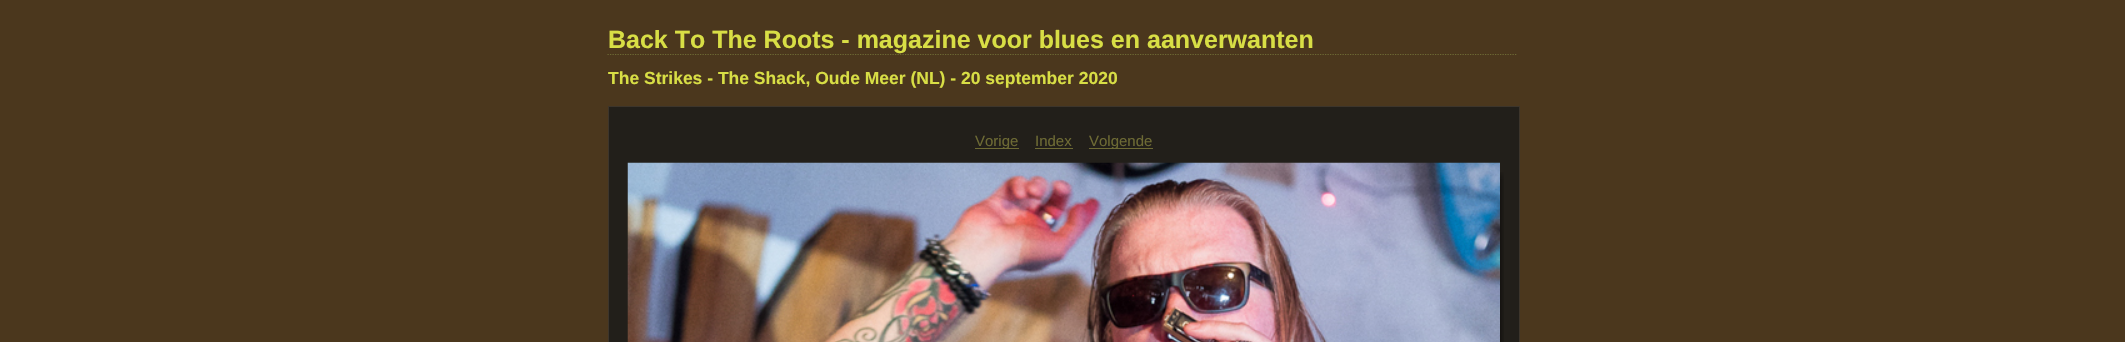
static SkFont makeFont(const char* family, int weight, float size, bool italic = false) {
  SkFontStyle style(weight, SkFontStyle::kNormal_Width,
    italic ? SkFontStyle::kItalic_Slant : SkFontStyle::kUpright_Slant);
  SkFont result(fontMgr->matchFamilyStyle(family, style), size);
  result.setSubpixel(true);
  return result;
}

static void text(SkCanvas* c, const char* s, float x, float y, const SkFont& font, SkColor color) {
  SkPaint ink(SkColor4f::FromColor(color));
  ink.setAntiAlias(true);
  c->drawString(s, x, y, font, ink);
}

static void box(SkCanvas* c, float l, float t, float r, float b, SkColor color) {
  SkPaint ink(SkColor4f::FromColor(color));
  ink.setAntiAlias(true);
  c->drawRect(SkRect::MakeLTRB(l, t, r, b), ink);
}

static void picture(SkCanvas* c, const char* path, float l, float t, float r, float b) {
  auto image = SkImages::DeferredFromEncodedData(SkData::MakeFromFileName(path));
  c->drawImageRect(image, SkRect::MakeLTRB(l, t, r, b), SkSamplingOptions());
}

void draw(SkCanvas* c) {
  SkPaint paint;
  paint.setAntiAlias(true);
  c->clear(0xff4b371d);
  paint.setStyle(SkPaint::kStroke_Style);
  paint.setStrokeWidth(1.2f);
  paint.setColor(0xff6d6a34);
  paint.setPathEffect(SkDashPathEffect::Make({{1.25f, 1.25f}}, 0));
  c->drawPath(SkPathBuilder().moveTo(607.5f, 54.5f).lineTo(1517.5f, 54.5f).detach(), paint);
  paint.setPathEffect(nullptr);
  SkFont face1 = makeFont("Liberation Sans", 700, 25);
  text(c, "Back To The Roots - magazine voor blues en aanverwanten", 608, 48, face1, 0xffd8de45);
  SkFont face2 = makeFont("Liberation Sans", 700, 17.5f);
  text(c, "The Strikes - The Shack, Oude Meer (NL) - 20 september 2020", 608, 84, face2, 0xffd8de45);
  paint.setStyle(SkPaint::kFill_Style);
  paint.setColor(0xff221f1a);
  c->drawRect(SkRect::MakeLTRB(608.5f, 106.5f, 1519.5f, 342.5f), paint);
  paint.setStyle(SkPaint::kStroke_Style);
  paint.setStrokeWidth(1);
  paint.setColor(0xff3d352b);
  c->drawRect(SkRect::MakeLTRB(608.5f, 106.5f, 1519.5f, 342.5f), paint);
  box(c, 975, 148, 1019, 149, 0xff6d6a34);
  SkFont face3 = makeFont("Liberation Sans", 400, 15);
  text(c, "Vorige", 975, 146, face3, 0xff6d6a34);
  text(c, "Index", 1035, 146, face3, 0xff6d6a34);
  box(c, 1035, 148, 1073, 149, 0xff6d6a34);
  box(c, 1089, 148, 1153, 149, 0xff6d6a34);
  text(c, "Volgende", 1089, 146, face3, 0xff6d6a34);
  picture(c, "img_01.png", 1500, 178, 1504, 342);
  picture(c, "img_02.png", 627, 162, 1500, 342);
  picture(c, "img_03.png", 1500, 172, 1504, 179);
}
